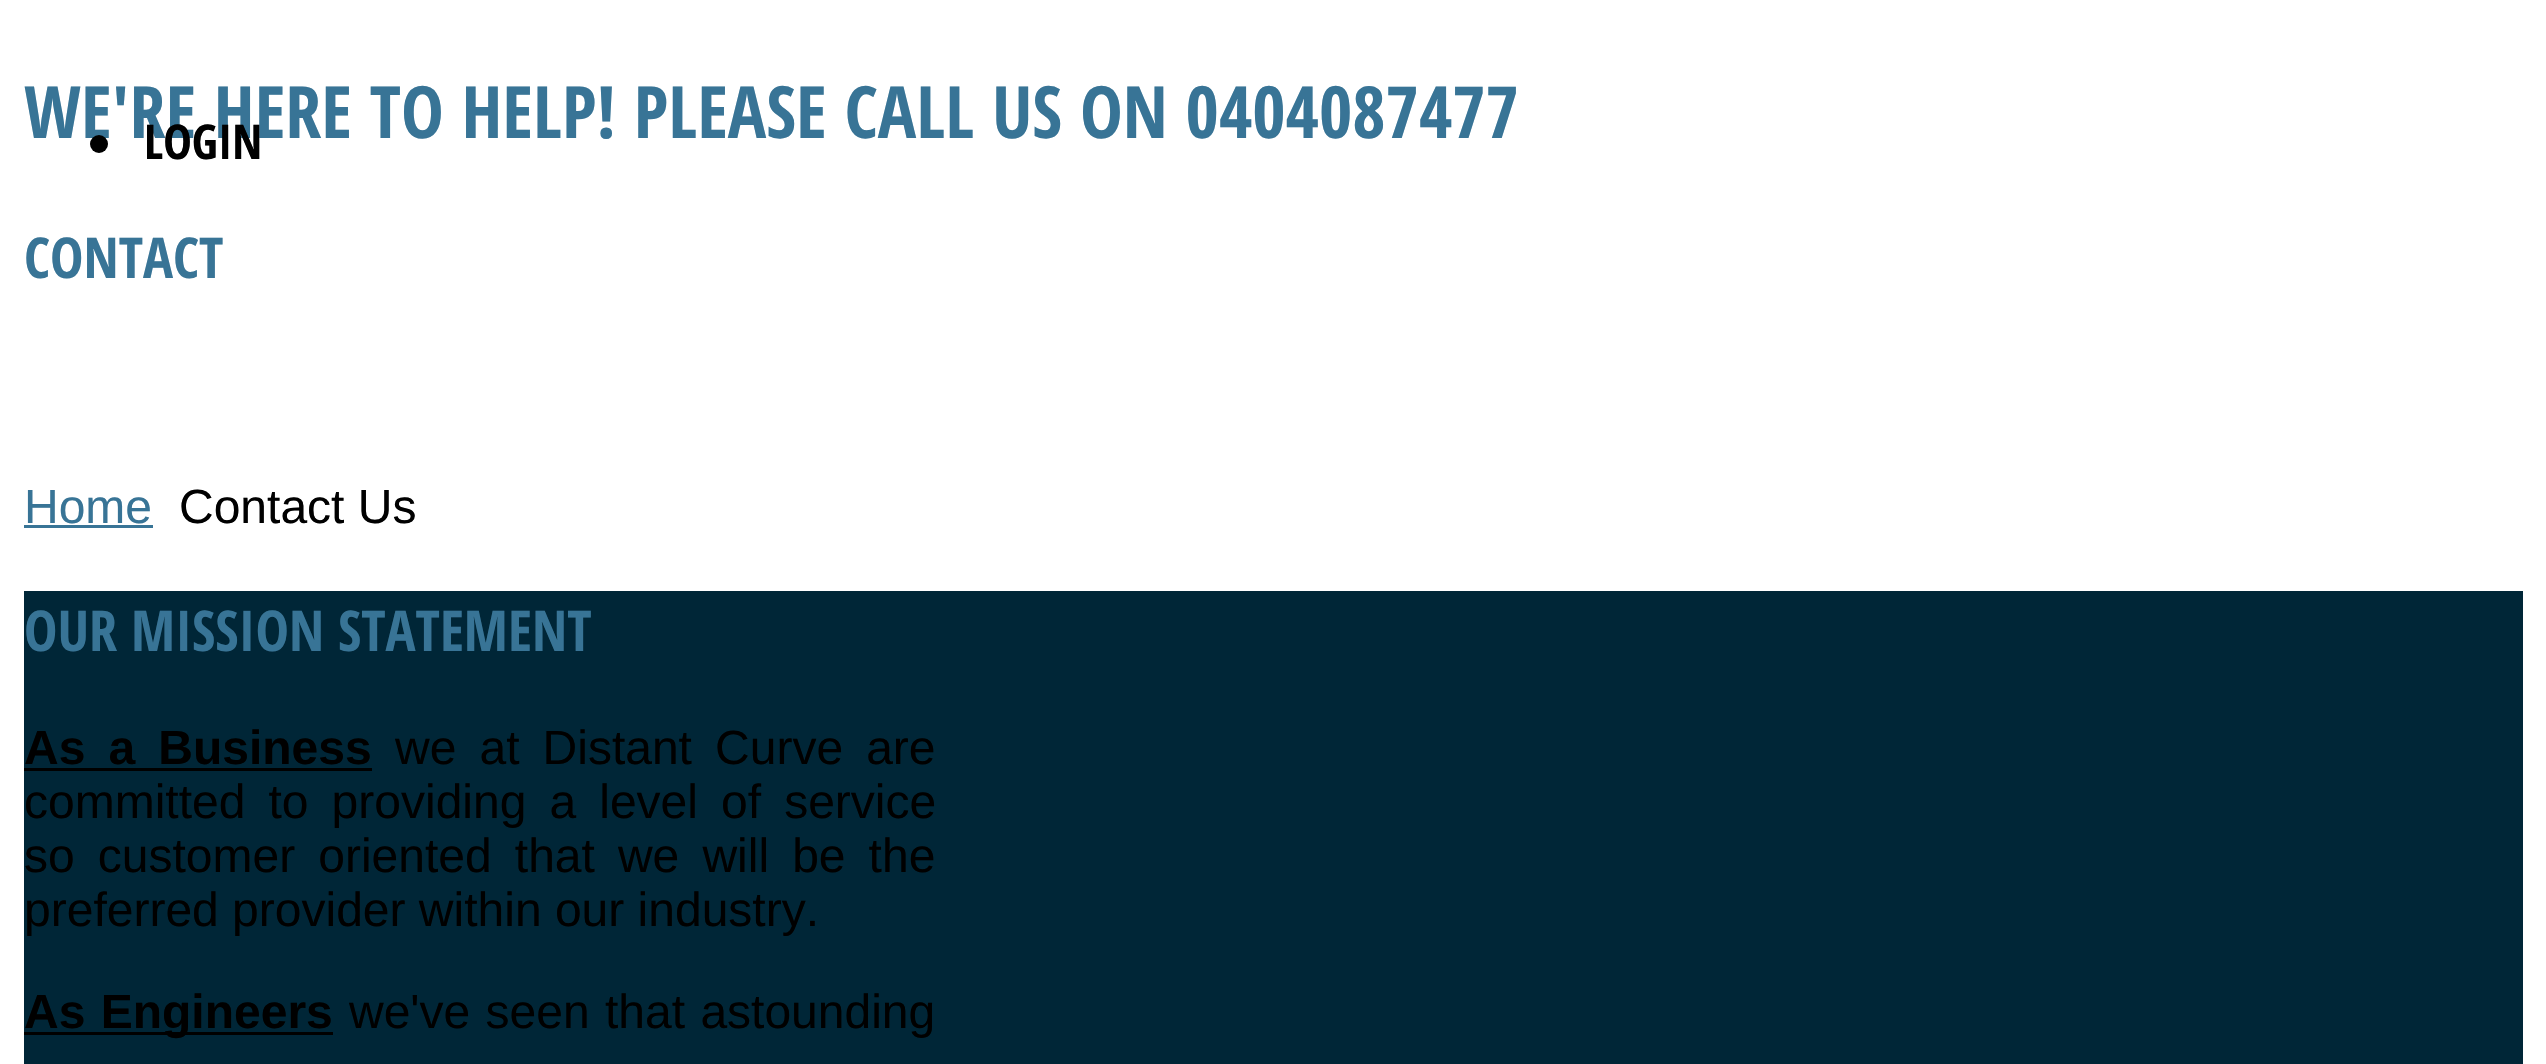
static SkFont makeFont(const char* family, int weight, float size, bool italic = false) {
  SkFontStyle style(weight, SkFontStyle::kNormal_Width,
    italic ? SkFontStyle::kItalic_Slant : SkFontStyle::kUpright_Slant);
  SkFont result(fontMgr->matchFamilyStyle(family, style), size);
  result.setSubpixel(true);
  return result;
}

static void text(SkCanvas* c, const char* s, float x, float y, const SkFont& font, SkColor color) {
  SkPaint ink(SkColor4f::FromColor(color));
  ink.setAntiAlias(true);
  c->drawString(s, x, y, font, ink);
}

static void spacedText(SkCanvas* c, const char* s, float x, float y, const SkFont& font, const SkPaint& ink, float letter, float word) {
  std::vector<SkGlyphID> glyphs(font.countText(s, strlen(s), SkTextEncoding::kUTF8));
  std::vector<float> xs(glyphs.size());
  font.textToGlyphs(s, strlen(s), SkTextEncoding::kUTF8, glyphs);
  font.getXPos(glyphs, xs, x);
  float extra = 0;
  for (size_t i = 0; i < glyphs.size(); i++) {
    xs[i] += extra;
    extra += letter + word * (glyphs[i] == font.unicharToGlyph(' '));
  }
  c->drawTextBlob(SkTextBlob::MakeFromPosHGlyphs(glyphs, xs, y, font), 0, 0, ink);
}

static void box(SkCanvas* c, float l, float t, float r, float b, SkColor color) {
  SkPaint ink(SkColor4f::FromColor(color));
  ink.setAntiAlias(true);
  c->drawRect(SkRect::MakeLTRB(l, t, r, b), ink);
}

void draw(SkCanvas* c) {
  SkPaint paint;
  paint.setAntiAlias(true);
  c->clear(0xffffffff);
  SkFont face1 = makeFont("Open Sans Condensed", 700, 72);
  text(c, "WE'RE HERE TO HELP! PLEASE CALL US ON 0404087477", 24, 138, face1, 0xff387496);
  SkFont face2 = makeFont("Open Sans Condensed", 700, 56.25f);
  text(c, "CONTACT", 24, 278, face2, 0xff387496);
  SkFont face3 = makeFont("Liberation Sans", 400, 48);
  text(c, "Home", 24, 523, face3, 0xff387496);
  box(c, 24, 525, 153, 528, 0xff387496);
  text(c, "Contact Us", 179, 523, face3, 0xff000000);
  paint.setColor(0xff000000);
  c->drawCircle(99, 144, 9, paint);
  SkFont face4 = makeFont("Open Sans Condensed", 700, 48);
  text(c, "LOGIN", 144, 159, face4, 0xff000000);
  box(c, 24, 591, 2523, 1064, 0xff002637);
  text(c, "OUR MISSION STATEMENT", 24, 651, face2, 0xff387496);
  SkFont face5 = makeFont("Liberation Sans", 700, 48);
  spacedText(c, "As a Business", 24, 764, face5, paint, 0, 9.75f);
  box(c, 24, 768, 372, 771, 0xff000000);
  spacedText(c, "we at Distant Curve are", 395, 764, face3, paint, 0, 9.75f);
  spacedText(c, "committed to providing a level of service", 24, 818, face3, paint, 0, 9.75f);
  spacedText(c, "so customer oriented that we will be the", 24, 872, face3, paint, 0, 9.75f);
  text(c, "preferred provider within our industry.", 24, 926, face3, 0xff000000);
  box(c, 24, 1032, 333, 1035, 0xff000000);
  spacedText(c, "As Engineers", 24, 1028, face5, paint, 0, 2);
  spacedText(c, "we've seen that astounding", 349, 1028, face3, paint, 0, 2);
}
